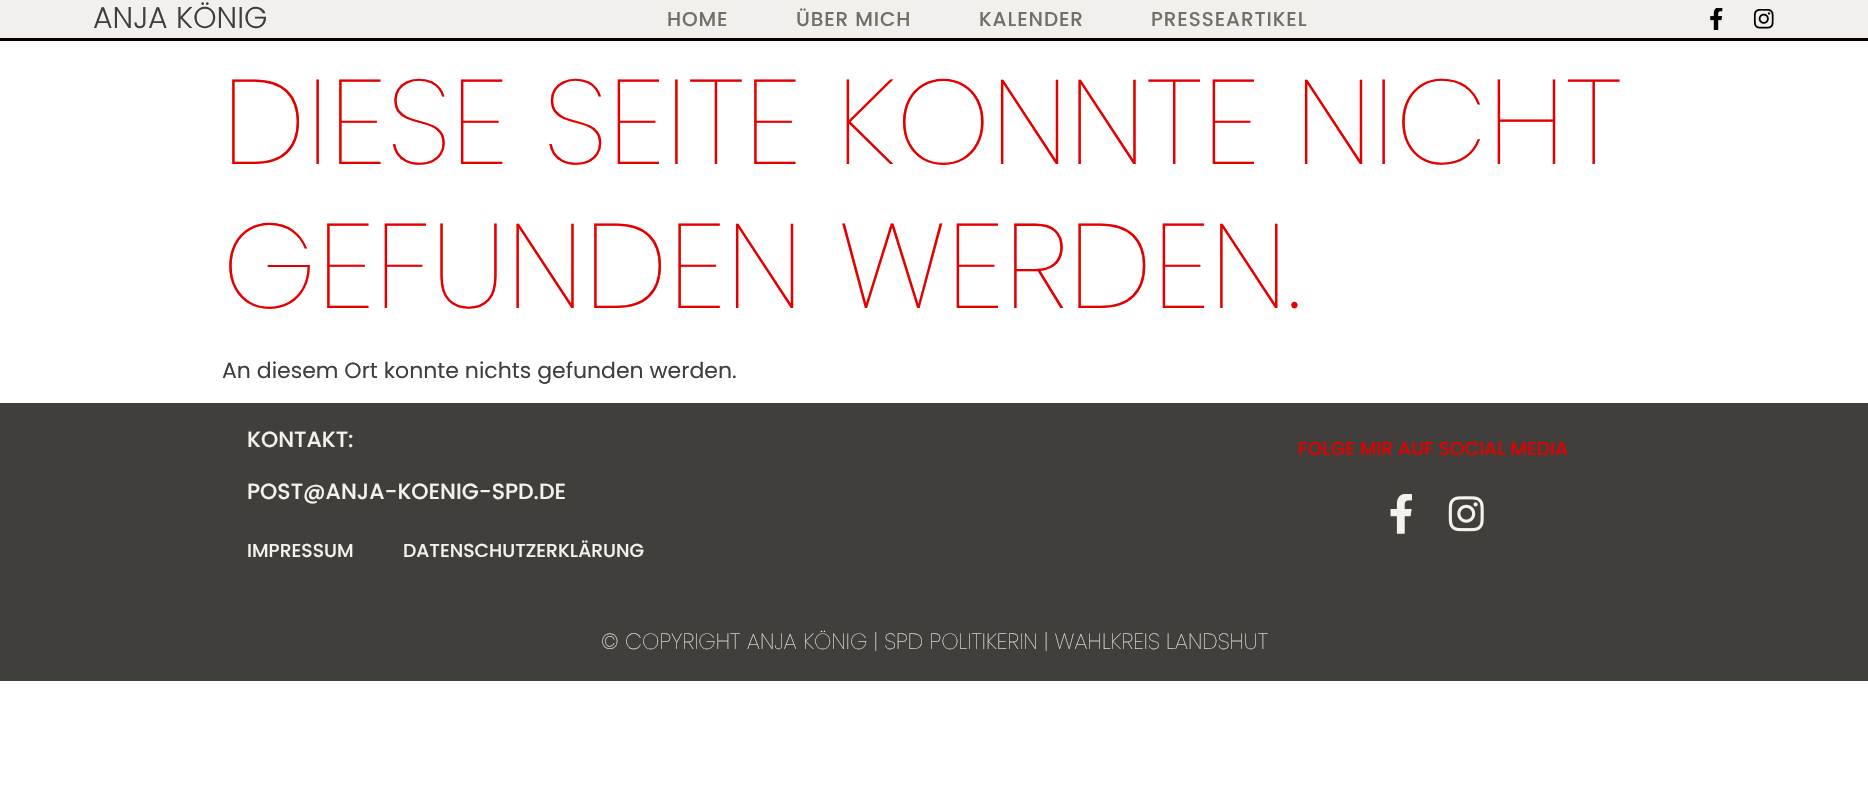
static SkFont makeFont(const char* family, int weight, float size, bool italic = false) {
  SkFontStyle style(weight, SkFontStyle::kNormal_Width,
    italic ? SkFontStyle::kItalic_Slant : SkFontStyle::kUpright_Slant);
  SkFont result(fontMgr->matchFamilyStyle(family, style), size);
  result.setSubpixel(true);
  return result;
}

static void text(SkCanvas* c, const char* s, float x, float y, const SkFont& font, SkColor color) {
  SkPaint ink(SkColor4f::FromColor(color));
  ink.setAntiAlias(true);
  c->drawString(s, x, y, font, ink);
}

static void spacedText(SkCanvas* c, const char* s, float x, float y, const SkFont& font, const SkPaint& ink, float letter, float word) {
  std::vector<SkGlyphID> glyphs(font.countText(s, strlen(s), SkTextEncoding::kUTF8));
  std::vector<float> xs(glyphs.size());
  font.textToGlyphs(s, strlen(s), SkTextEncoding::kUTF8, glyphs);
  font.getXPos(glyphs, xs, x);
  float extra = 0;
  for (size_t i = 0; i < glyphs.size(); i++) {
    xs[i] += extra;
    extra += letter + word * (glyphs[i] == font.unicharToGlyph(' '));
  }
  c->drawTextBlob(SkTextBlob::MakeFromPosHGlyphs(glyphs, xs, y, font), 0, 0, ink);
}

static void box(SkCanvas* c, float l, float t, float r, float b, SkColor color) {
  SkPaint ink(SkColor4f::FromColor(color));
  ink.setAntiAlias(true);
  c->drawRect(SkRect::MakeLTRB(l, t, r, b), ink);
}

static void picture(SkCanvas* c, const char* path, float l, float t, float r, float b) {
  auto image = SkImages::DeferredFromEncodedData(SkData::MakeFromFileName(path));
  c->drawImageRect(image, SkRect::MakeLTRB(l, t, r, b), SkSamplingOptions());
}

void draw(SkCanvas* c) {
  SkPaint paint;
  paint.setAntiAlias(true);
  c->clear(0xffffffff);
  box(c, 0, 0, 1868, 38, 0xfff2efec);
  box(c, 0, 38, 1868, 41, 0xff000000);
  SkFont face1 = makeFont("Poppins", 300, 30);
  text(c, "ANJA KÖNIG", 93, 28, face1, 0xff403f3c);
  SkFont face2 = makeFont("Poppins", 500, 20);
  paint.setColor(0xff726f65);
  spacedText(c, "HOME", 667, 26, face2, paint, 0.9f, 0);
  spacedText(c, "ÜBER MICH", 796, 26, face2, paint, 0.9f, 0);
  spacedText(c, "KALENDER", 979, 26, face2, paint, 0.9f, 0);
  spacedText(c, "PRESSEARTIKEL", 1151, 26, face2, paint, 0.9f, 0);
  picture(c, "img_01.png", 1710, 8, 1723, 30);
  picture(c, "img_02.png", 1753, 9, 1774, 29);
  SkFont face3 = makeFont("Poppins", 200, 120);
  text(c, "DIESE SEITE KONNTE NICHT", 222, 164, face3, 0xffe50000);
  text(c, "GEFUNDEN WERDEN.", 222, 308, face3, 0xffe50000);
  SkFont face4 = makeFont("Poppins", 400, 22);
  text(c, "An diesem Ort konnte nichts gefunden werden.", 222, 378, face4, 0xff403f3c);
  box(c, 0, 403, 1868, 681, 0xff403f3c);
  SkFont face5 = makeFont("Poppins", 500, 22);
  text(c, "KONTAKT:", 247, 447, face5, 0xfff4f2eb);
  text(c, "POST@ANJA-KOENIG-SPD.DE", 247, 499, face5, 0xfff4f2eb);
  SkFont face6 = makeFont("Poppins", 500, 18.75f);
  text(c, "IMPRESSUM", 247, 557, face6, 0xfff4f2eb);
  text(c, "DATENSCHUTZERKLÄRUNG", 403, 557, face6, 0xfff4f2eb);
  text(c, "FOLGE MIR AUF SOCIAL MEDIA", 1298, 455, face6, 0xffe50000);
  picture(c, "img_03.png", 1390, 494, 1412, 534);
  picture(c, "img_04.png", 1448, 496, 1484, 532);
  SkFont face7 = makeFont("Poppins", 200, 22);
  text(c, "© COPYRIGHT ANJA KÖNIG | SPD POLITIKERIN | WAHLKREIS LANDSHUT", 601, 649, face7, 0xfff4f2eb);
}
